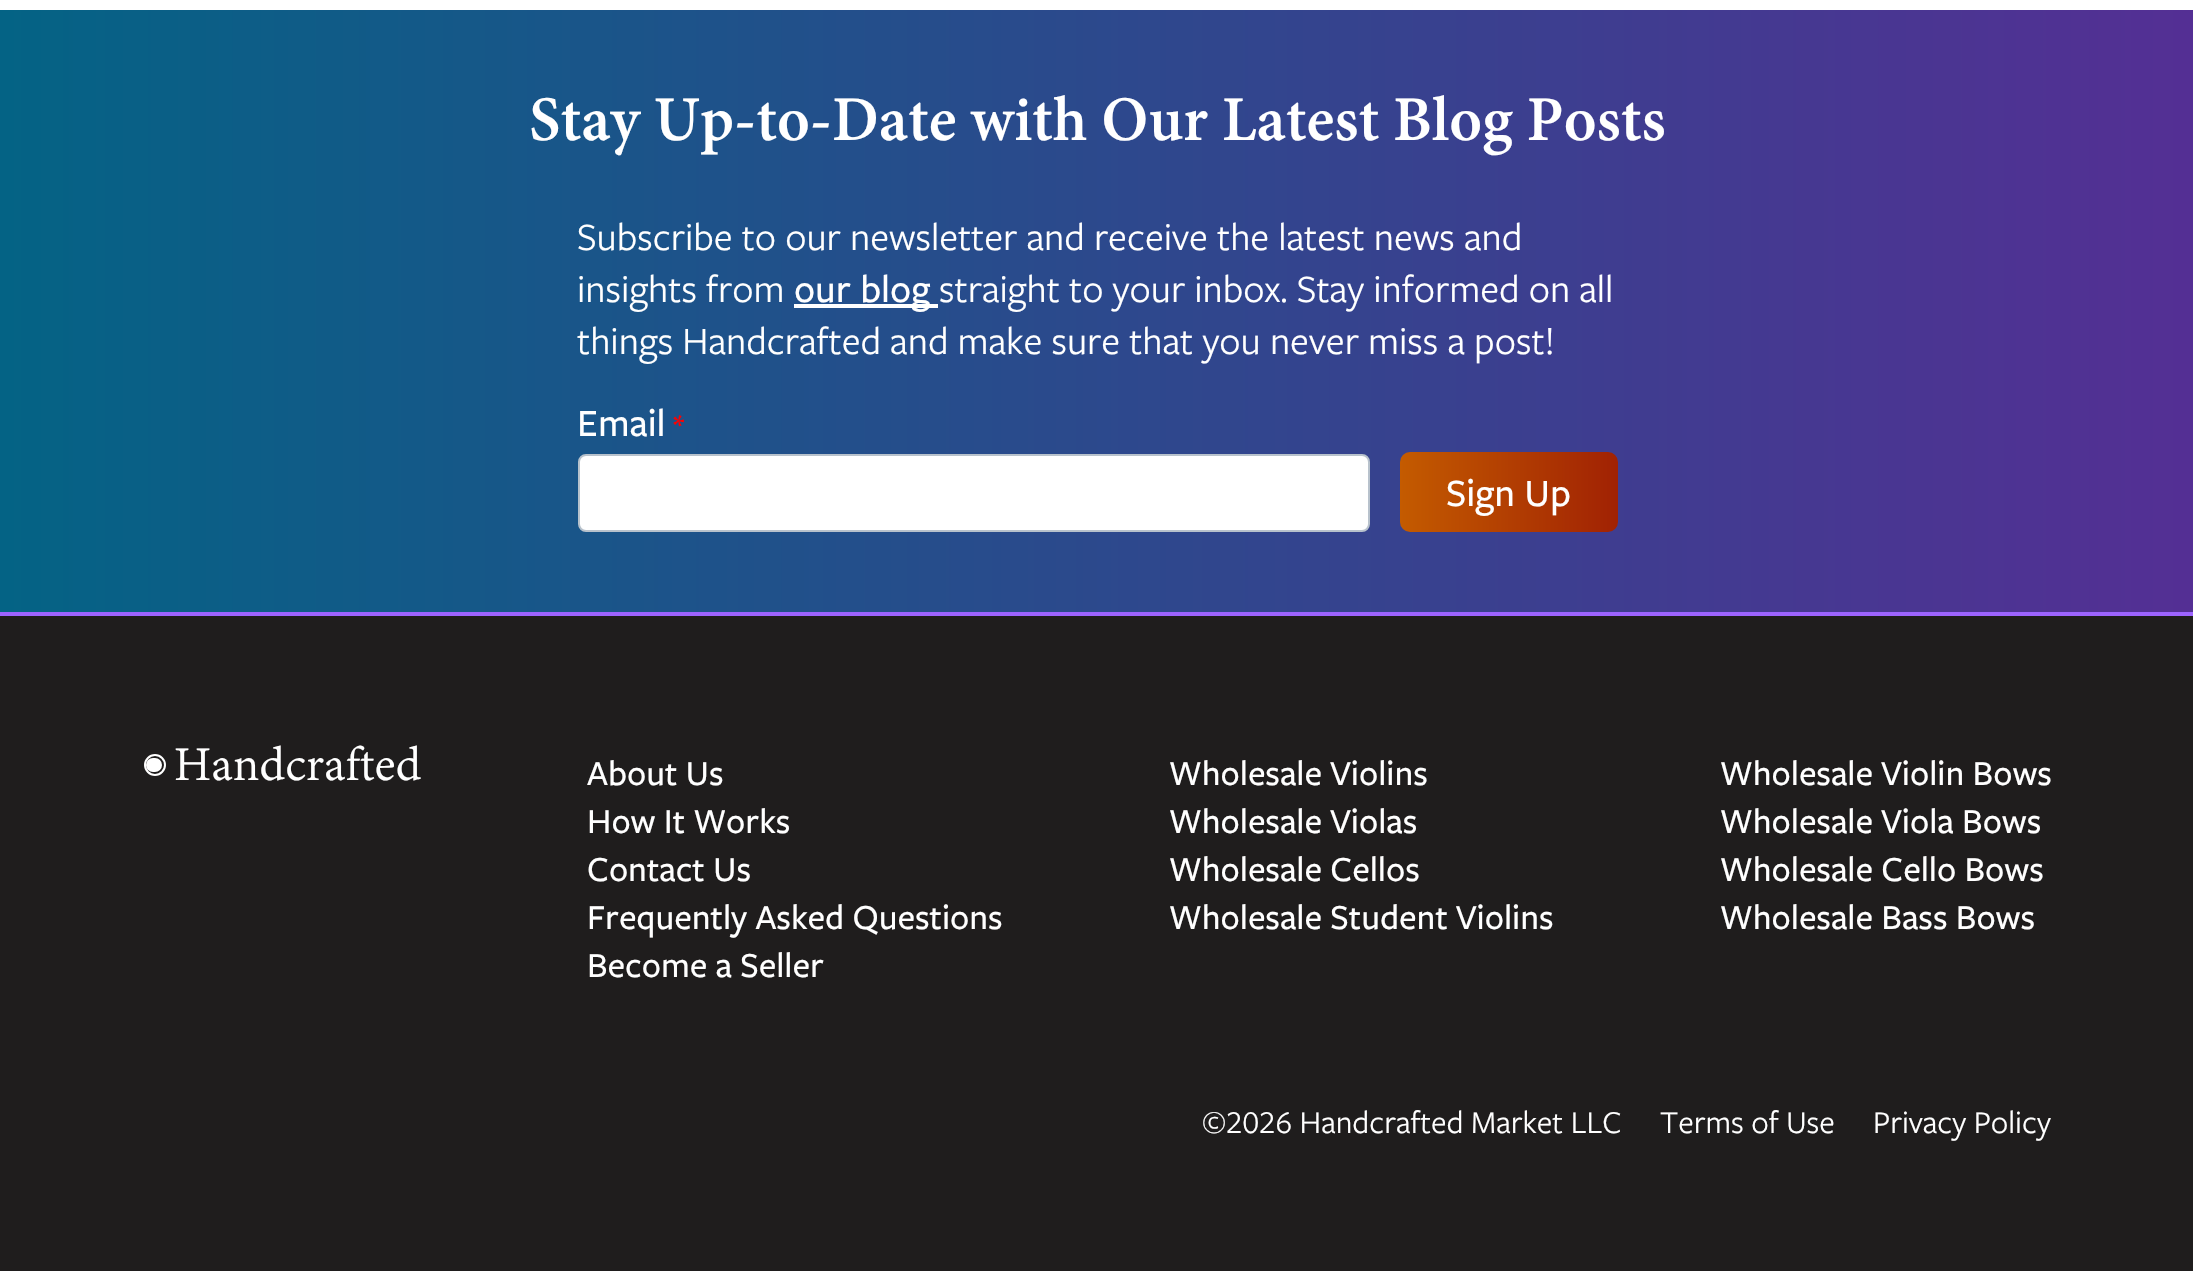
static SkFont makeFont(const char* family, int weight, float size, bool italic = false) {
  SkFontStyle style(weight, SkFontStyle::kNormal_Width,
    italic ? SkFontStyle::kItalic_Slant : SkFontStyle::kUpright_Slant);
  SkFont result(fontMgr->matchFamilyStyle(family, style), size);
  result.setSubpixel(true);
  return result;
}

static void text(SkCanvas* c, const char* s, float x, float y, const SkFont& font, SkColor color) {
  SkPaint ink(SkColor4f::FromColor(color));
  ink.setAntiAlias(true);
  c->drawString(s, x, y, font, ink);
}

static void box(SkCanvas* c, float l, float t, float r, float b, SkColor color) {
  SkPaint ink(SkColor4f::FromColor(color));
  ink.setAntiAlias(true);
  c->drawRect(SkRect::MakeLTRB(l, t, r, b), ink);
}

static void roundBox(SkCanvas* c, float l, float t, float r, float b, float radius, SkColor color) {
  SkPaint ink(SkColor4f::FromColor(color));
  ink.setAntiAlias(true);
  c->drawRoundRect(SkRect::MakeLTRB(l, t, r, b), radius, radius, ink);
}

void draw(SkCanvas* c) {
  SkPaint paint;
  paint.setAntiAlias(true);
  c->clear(0xffffffff);
  {
    const SkColor colors[] = {0xff046385, 0xff542f94};
    const float stops[] = {0, 1};
    const SkPoint ends[] = {{0, 311}, {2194, 311}};
    paint.setShader(SkGradientShader::MakeLinear(ends, colors, stops, 2, SkTileMode::kClamp));
    paint.setAlpha(255);
  }
  c->drawRect(SkRect::MakeLTRB(0, 10, 2193, 612), paint);
  SkFont face1 = makeFont("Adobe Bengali", 700, 69.1f);
  text(c, "Stay Up-to-Date with Our Latest Blog Posts", 529, 140, face1, 0xffffffff);
  SkFont face2 = makeFont("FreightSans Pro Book", 400, 40);
  text(c, "Subscribe to our newsletter and receive the latest news and", 577, 250, face2, 0xffffffff);
  text(c, "insights from", 577, 302, face2, 0xffffffff);
  box(c, 794, 304, 938, 308, 0xffffffff);
  SkFont face3 = makeFont("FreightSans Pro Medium", 500, 40);
  text(c, "our blog", 794, 302, face3, 0xffffffff);
  text(c, "straight to your inbox. Stay informed on all", 939, 302, face2, 0xffffffff);
  text(c, "things Handcrafted and make sure that you never miss a post!", 577, 354, face2, 0xffffffff);
  text(c, "Email", 577, 436, face3, 0xffffffff);
  SkFont face4 = makeFont("FreightSans Pro Medium", 500, 32);
  text(c, "*", 673, 436, face4, 0xffff0000);
  paint.setShader(nullptr);
  paint.setColor(0xffffffff);
  c->drawRoundRect(SkRect::MakeLTRB(579, 455, 1369, 531), 7, 7, paint);
  paint.setStyle(SkPaint::kStroke_Style);
  paint.setStrokeWidth(2);
  paint.setColor(0xffb8c2cc);
  c->drawRoundRect(SkRect::MakeLTRB(579, 455, 1369, 531), 7, 7, paint);
  paint.setStyle(SkPaint::kFill_Style);
  {
    const SkColor colors[] = {0xffc45b00, 0xff8f0505};
    const float stops[] = {0, 1};
    const SkPoint ends[] = {{1400, 492}, {1727, 492}};
    paint.setShader(SkGradientShader::MakeLinear(ends, colors, stops, 2, SkTileMode::kClamp));
    paint.setAlpha(255);
  }
  c->drawRoundRect(SkRect::MakeLTRB(1400, 452, 1618, 532), 10, 10, paint);
  text(c, "Sign Up", 1446, 506, face3, 0xffffffff);
  box(c, 0, 616, 2193, 1271, 0xff1f1d1d);
  box(c, 0, 612, 2193, 616, 0xff9d63ff);
  paint.setStyle(SkPaint::kStroke_Style);
  paint.setShader(nullptr);
  paint.setColor(0xffffffff);
  c->drawCircle(155, 765, 10, paint);
  roundBox(c, 146, 758, 162, 772, 7, 0xffffffff);
  SkFont face5 = makeFont("Adobe Bengali", 400, 52.5f);
  text(c, "Handcrafted", 174, 780, face5, 0xffffffff);
  SkFont face6 = makeFont("FreightSans Pro Medium", 500, 36.4f);
  text(c, "About Us", 587, 785, face6, 0xffffffff);
  text(c, "How It Works", 587, 833, face6, 0xffffffff);
  text(c, "Contact Us", 587, 881, face6, 0xffffffff);
  text(c, "Frequently Asked Questions", 587, 929, face6, 0xffffffff);
  text(c, "Become a Seller", 587, 977, face6, 0xffffffff);
  text(c, "Wholesale Violins", 1169, 785, face6, 0xffffffff);
  text(c, "Wholesale Violas", 1169, 833, face6, 0xffffffff);
  text(c, "Wholesale Cellos", 1169, 881, face6, 0xffffffff);
  text(c, "Wholesale Student Violins", 1169, 929, face6, 0xffffffff);
  text(c, "Wholesale Violin Bows", 1720, 785, face6, 0xffffffff);
  text(c, "Wholesale Viola Bows", 1720, 833, face6, 0xffffffff);
  text(c, "Wholesale Cello Bows", 1720, 881, face6, 0xffffffff);
  text(c, "Wholesale Bass Bows", 1720, 929, face6, 0xffffffff);
  SkFont face7 = makeFont("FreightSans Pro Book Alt", 400, 33);
  text(c, "©2026 Handcrafted Market LLC", 1202, 1133, face7, 0xffffffff);
  SkFont face8 = makeFont("FreightSans Pro Book", 400, 33);
  text(c, "Terms of Use", 1660, 1133, face8, 0xffffffff);
  text(c, "Privacy Policy", 1873, 1133, face8, 0xffffffff);
}
